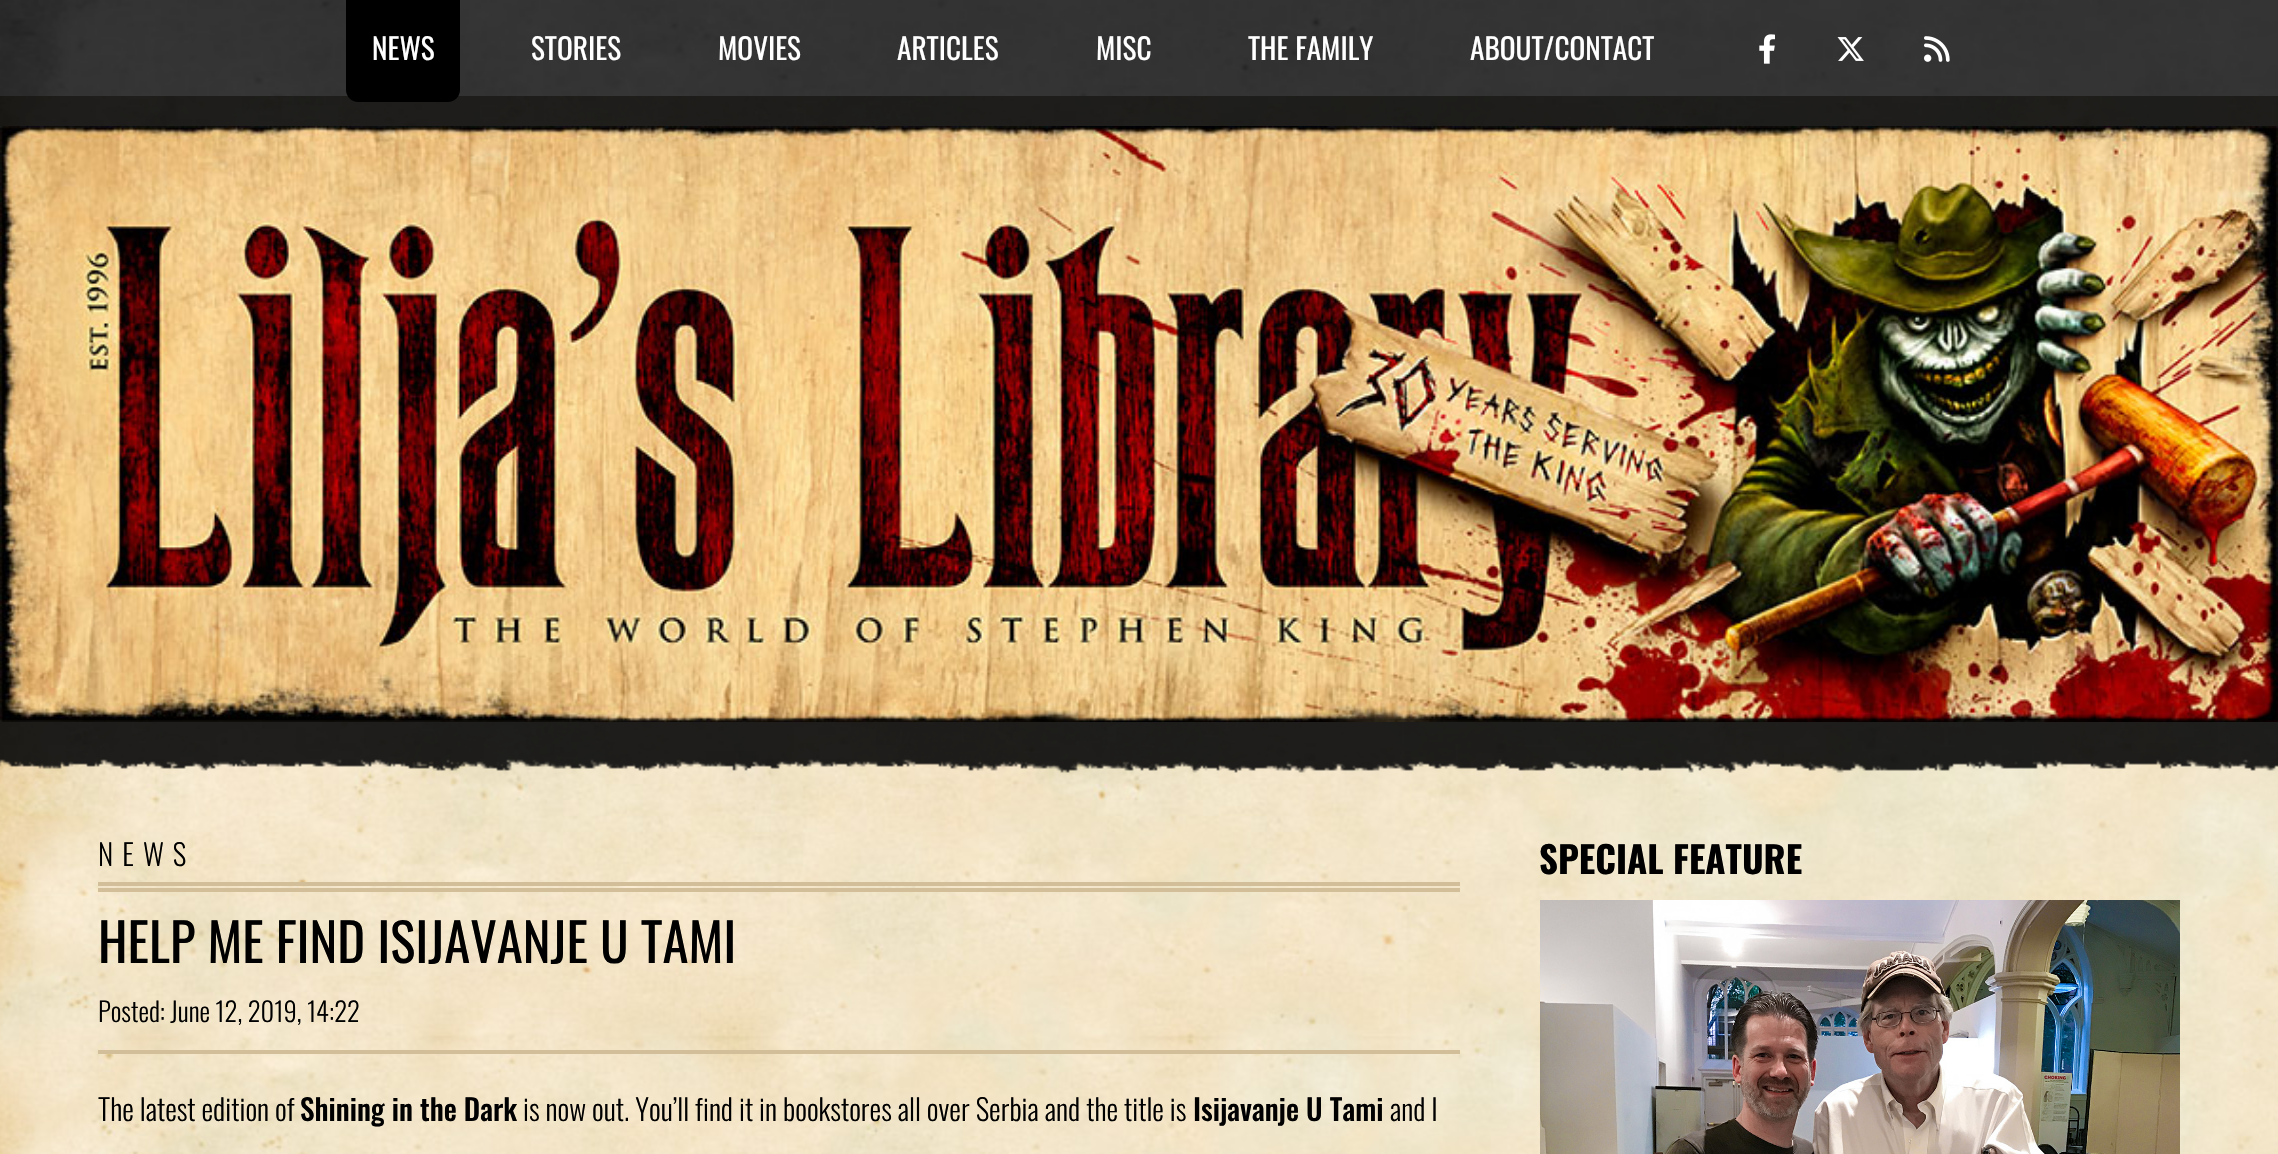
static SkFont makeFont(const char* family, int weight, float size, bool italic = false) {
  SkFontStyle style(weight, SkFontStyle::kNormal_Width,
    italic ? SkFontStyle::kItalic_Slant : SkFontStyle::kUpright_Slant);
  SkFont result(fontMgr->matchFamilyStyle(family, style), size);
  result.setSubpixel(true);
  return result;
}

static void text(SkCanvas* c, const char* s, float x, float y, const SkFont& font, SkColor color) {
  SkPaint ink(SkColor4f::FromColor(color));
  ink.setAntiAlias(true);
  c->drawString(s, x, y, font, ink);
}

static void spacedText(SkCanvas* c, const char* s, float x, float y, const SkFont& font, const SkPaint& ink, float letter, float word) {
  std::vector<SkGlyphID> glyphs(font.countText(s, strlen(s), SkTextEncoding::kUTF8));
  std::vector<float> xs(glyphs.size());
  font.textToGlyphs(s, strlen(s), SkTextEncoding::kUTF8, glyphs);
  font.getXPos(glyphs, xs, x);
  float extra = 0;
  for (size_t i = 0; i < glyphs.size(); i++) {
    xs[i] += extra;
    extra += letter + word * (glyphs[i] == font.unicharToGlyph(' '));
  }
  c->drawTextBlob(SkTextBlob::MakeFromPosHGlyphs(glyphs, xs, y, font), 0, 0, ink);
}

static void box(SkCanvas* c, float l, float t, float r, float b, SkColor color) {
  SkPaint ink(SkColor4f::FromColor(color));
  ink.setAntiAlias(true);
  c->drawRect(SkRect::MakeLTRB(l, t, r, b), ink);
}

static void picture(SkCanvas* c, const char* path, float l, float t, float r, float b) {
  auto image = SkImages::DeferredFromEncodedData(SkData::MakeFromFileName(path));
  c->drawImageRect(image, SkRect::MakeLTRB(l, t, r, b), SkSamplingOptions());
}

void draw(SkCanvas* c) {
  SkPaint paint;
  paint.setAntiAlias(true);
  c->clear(0xffffffff);
  picture(c, "img_01.png", 0, 96, 2278, 1154);
  picture(c, "img_02.png", 0, 0, 2278, 96);
  picture(c, "img_06.png", 0, 96, 2278, 773);
  paint.setColor(0xff000000);
  c->drawPath(SkPathBuilder().moveTo(346, -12).lineTo(460, -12).lineTo(460, 90).cubicTo(460, 96.5f, 454.5f, 102, 448, 102).lineTo(358, 102).cubicTo(351.5f, 102, 346, 96.5f, 346, 90).close().detach(), paint);
  SkFont face1 = makeFont("Oswald", 400, 29.3f);
  text(c, "NEWS", 372, 60, face1, 0xffffffff);
  text(c, "STORIES", 531, 60, face1, 0xffffffff);
  text(c, "MOVIES", 718, 60, face1, 0xffffffff);
  text(c, "ARTICLES", 897, 60, face1, 0xffffffff);
  text(c, "MISC", 1096, 60, face1, 0xffffffff);
  text(c, "THE FAMILY", 1248, 60, face1, 0xffffffff);
  text(c, "ABOUT/CONTACT", 1470, 60, face1, 0xffffffff);
  picture(c, "img_03.png", 1759, 34, 1775, 64);
  picture(c, "img_04.png", 1837, 37, 1864, 61);
  picture(c, "img_05.png", 1924, 36, 1950, 62);
  picture(c, "img_07.png", 0, 126, 2278, 722);
  box(c, 98, 882, 1460, 886, 0xffd2bf99);
  box(c, 98, 888, 1460, 892, 0xffd2bf99);
  SkFont face2 = makeFont("Oswald", 300, 29.3f);
  spacedText(c, "NEWS", 98, 866, face2, paint, 9, 0);
  SkFont face3 = makeFont("Oswald", 400, 52.75f);
  text(c, "HELP ME FIND ISIJAVANJE U TAMI", 98, 963, face3, 0xff000000);
  box(c, 98, 1050, 1460, 1054, 0xffd2bf99);
  SkFont face4 = makeFont("Oswald", 300, 26.5f);
  text(c, "Posted: June 12, 2019, 14:22", 98, 1022, face4, 0xff000000);
  text(c, "The latest edition of", 98, 1121, face2, 0xff000000);
  SkFont face5 = makeFont("Oswald", 500, 29.3f);
  text(c, "Shining in the Dark", 300, 1121, face5, 0xff000000);
  text(c, "is now out. You’ll find it in bookstores all over Serbia and the title is", 523, 1121, face2, 0xff000000);
  text(c, "Isijavanje U Tami", 1193, 1121, face5, 0xff000000);
  text(c, "and I", 1390, 1121, face2, 0xff000000);
  SkFont face6 = makeFont("Oswald", 700, 36.75f);
  text(c, "SPECIAL FEATURE", 1539, 874, face6, 0xff000000);
  picture(c, "img_08.png", 1540, 900, 2180, 1154);
}
